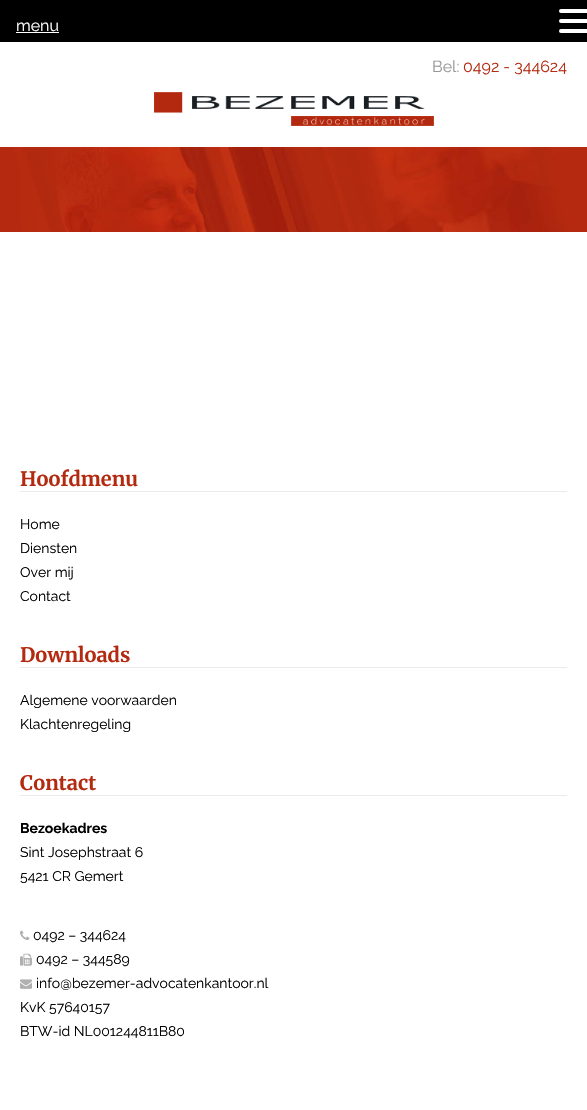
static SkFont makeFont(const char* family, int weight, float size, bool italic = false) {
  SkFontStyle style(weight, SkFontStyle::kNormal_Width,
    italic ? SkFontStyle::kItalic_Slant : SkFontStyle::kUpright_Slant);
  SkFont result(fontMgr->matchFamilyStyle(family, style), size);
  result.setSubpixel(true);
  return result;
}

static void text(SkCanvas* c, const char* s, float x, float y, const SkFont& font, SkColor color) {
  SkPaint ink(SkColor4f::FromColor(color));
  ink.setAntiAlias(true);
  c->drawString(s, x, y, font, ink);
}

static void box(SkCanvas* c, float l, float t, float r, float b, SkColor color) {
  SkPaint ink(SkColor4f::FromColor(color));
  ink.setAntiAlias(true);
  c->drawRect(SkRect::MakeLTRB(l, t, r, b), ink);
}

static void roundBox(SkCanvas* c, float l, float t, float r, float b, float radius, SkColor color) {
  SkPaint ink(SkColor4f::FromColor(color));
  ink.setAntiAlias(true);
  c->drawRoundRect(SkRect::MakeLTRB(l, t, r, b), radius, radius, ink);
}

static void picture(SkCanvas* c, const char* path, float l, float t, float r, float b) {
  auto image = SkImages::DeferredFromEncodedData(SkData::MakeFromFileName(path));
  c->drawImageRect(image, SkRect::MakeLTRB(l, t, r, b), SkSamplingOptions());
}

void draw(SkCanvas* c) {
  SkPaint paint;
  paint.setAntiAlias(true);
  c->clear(0xffffffff);
  box(c, 0, 0, 587, 42, 0xff000000);
  SkFont face1 = makeFont("Raleway", 400, 16);
  text(c, "menu", 16, 31, face1, 0xffffffff);
  box(c, 16, 32, 59, 33, 0xffffffff);
  roundBox(c, 559, 9, 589, 13, 2, 0xffffffff);
  roundBox(c, 559, 19, 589, 23, 2, 0xffffffff);
  roundBox(c, 559, 29, 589, 33, 2, 0xffffffff);
  text(c, "Bel:", 432, 72, face1, 0xff979797);
  text(c, "0492 - 344624", 463, 72, face1, 0xffb42a10);
  picture(c, "img_01.png", 154, 92, 434, 126);
  picture(c, "img_02.png", 0, 147, 587, 232);
  box(c, 20, 491, 567, 492, 0xffebebeb);
  SkFont face2 = makeFont("Merriweather", 700, 20);
  text(c, "Hoofdmenu", 20, 486, face2, 0xffb42a10);
  SkFont face3 = makeFont("Raleway", 400, 14);
  text(c, "Home", 20, 529, face3, 0xff000000);
  text(c, "Diensten", 20, 553, face3, 0xff000000);
  text(c, "Over mij", 20, 577, face3, 0xff000000);
  text(c, "Contact", 20, 601, face3, 0xff000000);
  box(c, 20, 667, 567, 668, 0xffebebeb);
  text(c, "Downloads", 20, 662, face2, 0xffb42a10);
  text(c, "Algemene voorwaarden", 20, 705, face3, 0xff000000);
  text(c, "Klachtenregeling", 20, 729, face3, 0xff000000);
  box(c, 20, 795, 567, 796, 0xffebebeb);
  text(c, "Contact", 20, 790, face2, 0xffb42a10);
  SkFont face4 = makeFont("Raleway", 700, 14);
  text(c, "Bezoekadres", 20, 833, face4, 0xff000000);
  text(c, "Sint Josephstraat 6", 20, 857, face3, 0xff000000);
  text(c, "5421 CR Gemert", 20, 881, face3, 0xff000000);
  picture(c, "img_03.png", 20, 930, 30, 940);
  text(c, "0492 – 344624", 33, 940, face3, 0xff000000);
  picture(c, "img_04.png", 20, 953, 32, 966);
  text(c, "0492 – 344589", 36, 964, face3, 0xff000000);
  picture(c, "img_05.png", 20, 979, 32, 989);
  text(c, "info@bezemer-advocatenkantoor.nl", 36, 988, face3, 0xff000000);
  text(c, "KvK 57640157", 20, 1012, face3, 0xff000000);
  text(c, "BTW-id NL001244811B80", 20, 1036, face3, 0xff000000);
}
